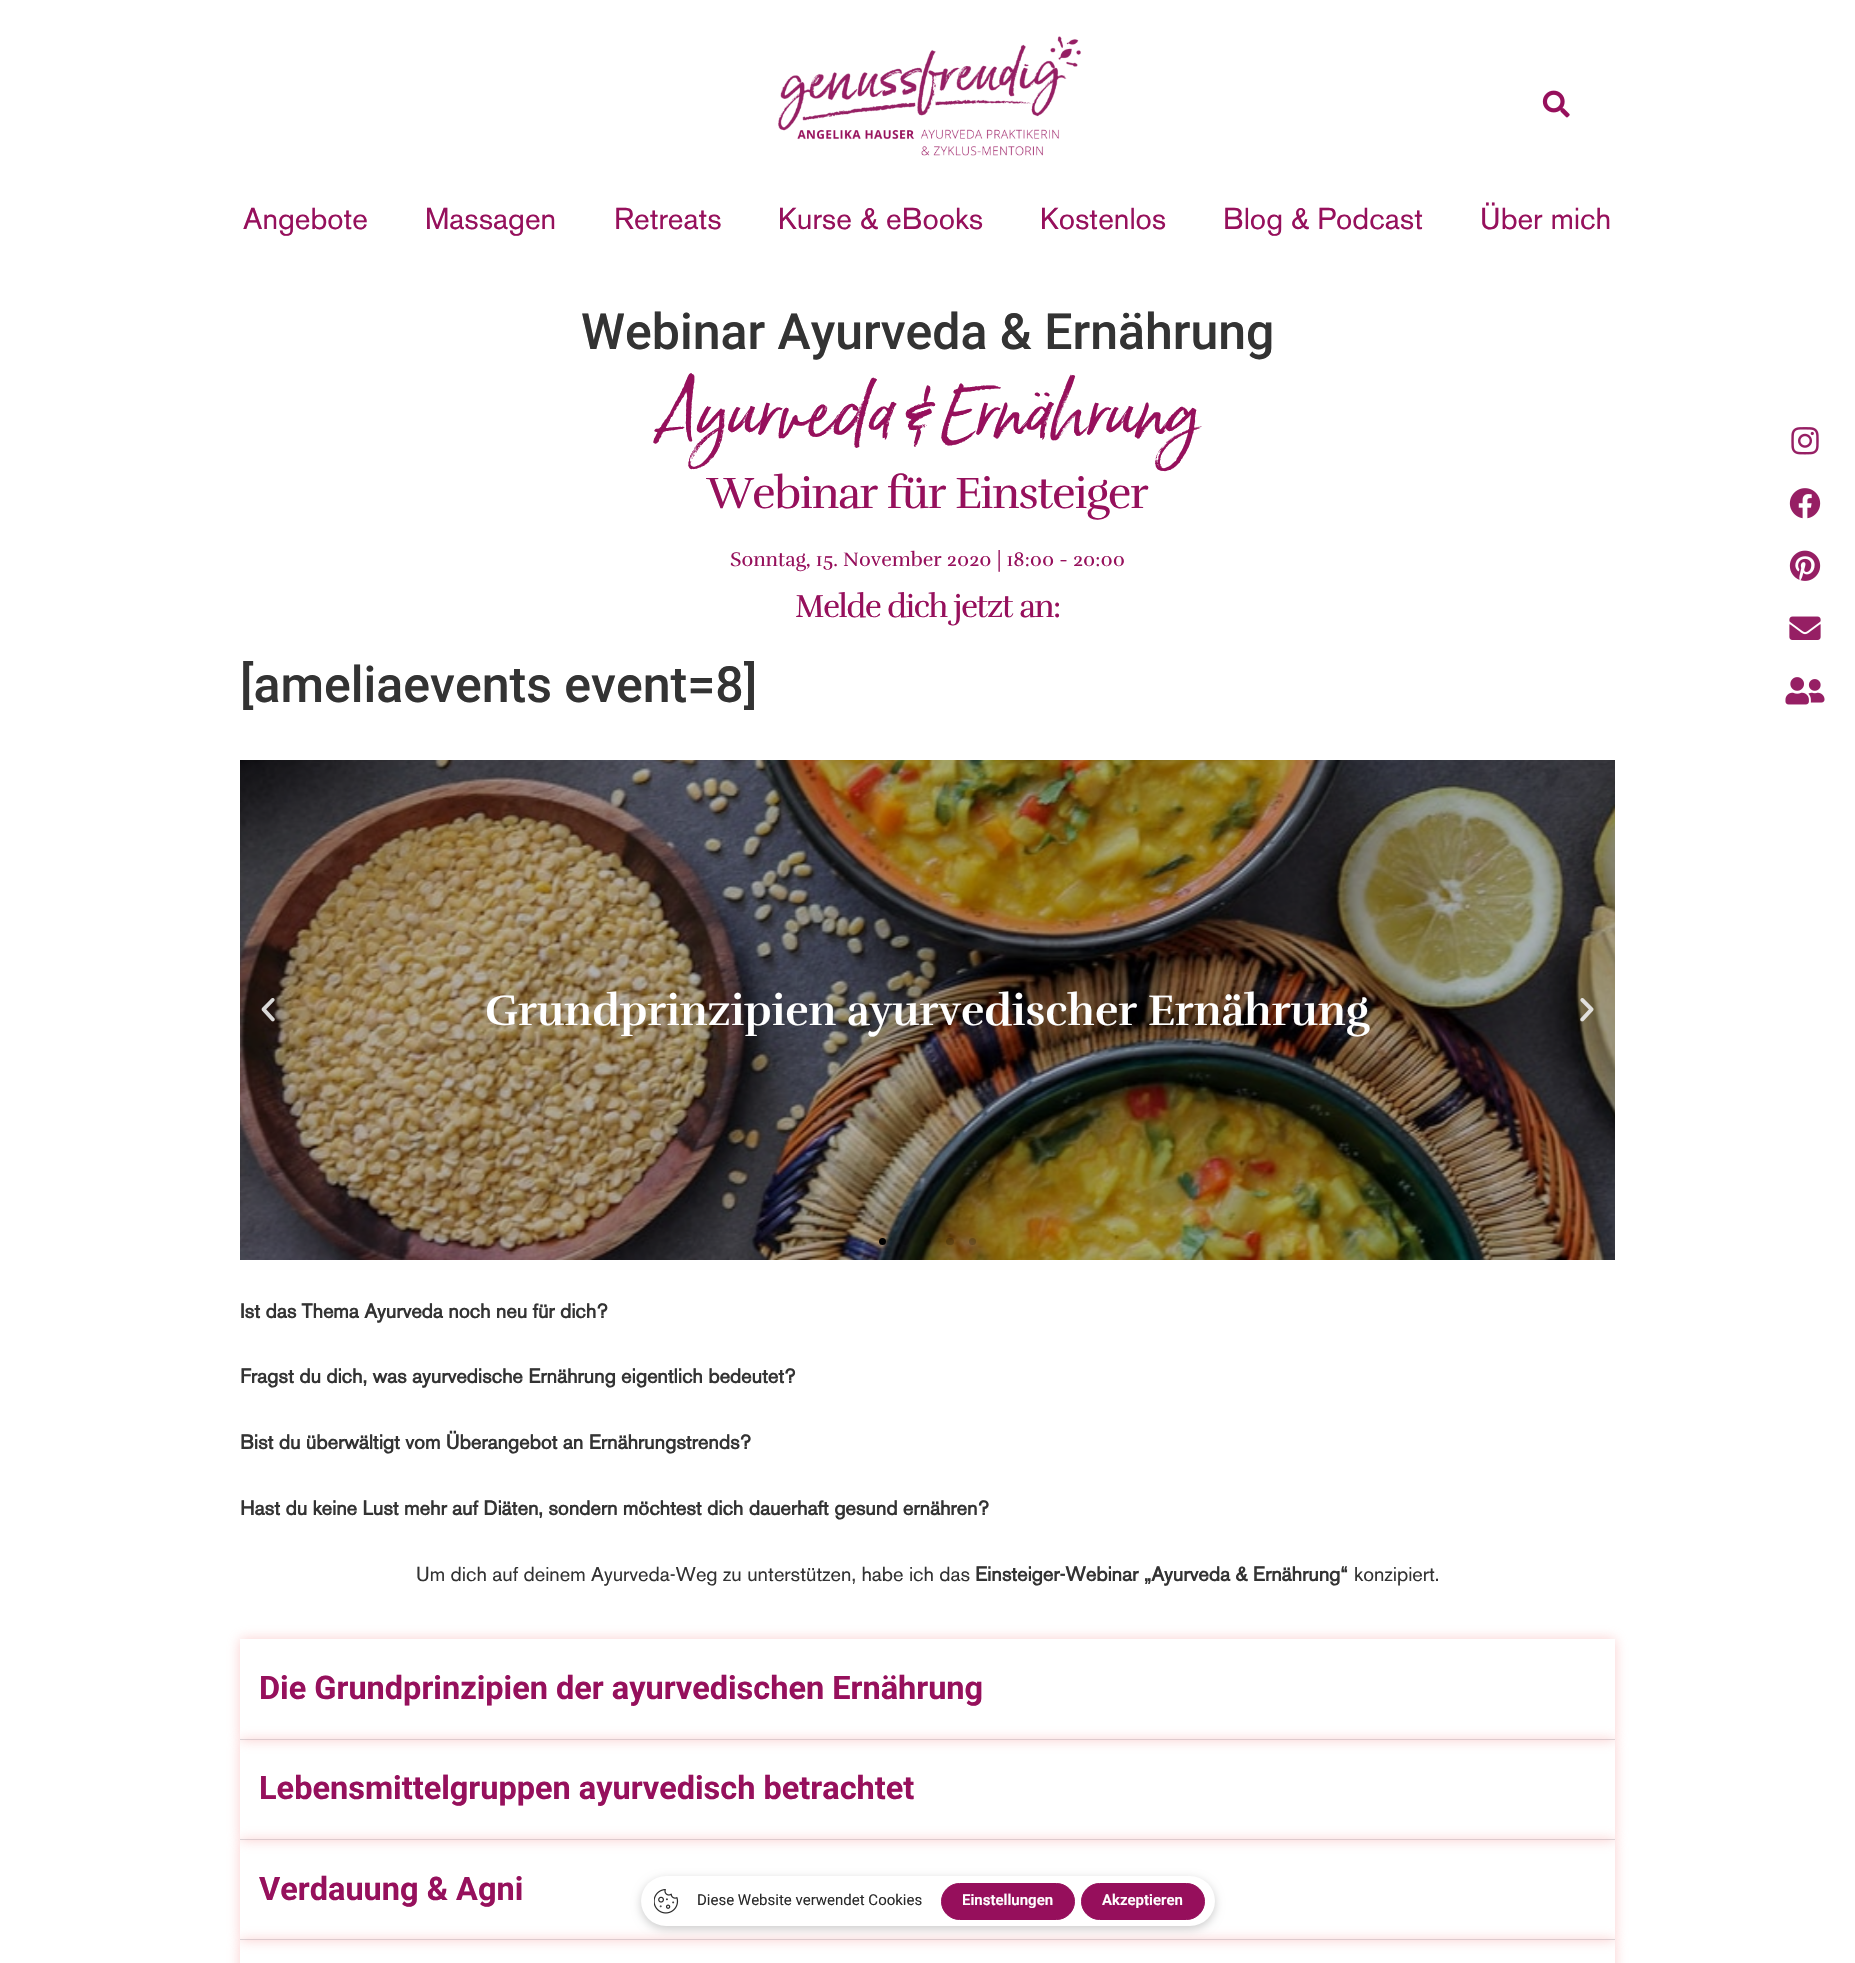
static SkFont makeFont(const char* family, int weight, float size, bool italic = false) {
  SkFontStyle style(weight, SkFontStyle::kNormal_Width,
    italic ? SkFontStyle::kItalic_Slant : SkFontStyle::kUpright_Slant);
  SkFont result(fontMgr->matchFamilyStyle(family, style), size);
  result.setSubpixel(true);
  return result;
}

static void text(SkCanvas* c, const char* s, float x, float y, const SkFont& font, SkColor color) {
  SkPaint ink(SkColor4f::FromColor(color));
  ink.setAntiAlias(true);
  c->drawString(s, x, y, font, ink);
}

static void spacedText(SkCanvas* c, const char* s, float x, float y, const SkFont& font, const SkPaint& ink, float letter, float word) {
  std::vector<SkGlyphID> glyphs(font.countText(s, strlen(s), SkTextEncoding::kUTF8));
  std::vector<float> xs(glyphs.size());
  font.textToGlyphs(s, strlen(s), SkTextEncoding::kUTF8, glyphs);
  font.getXPos(glyphs, xs, x);
  float extra = 0;
  for (size_t i = 0; i < glyphs.size(); i++) {
    xs[i] += extra;
    extra += letter + word * (glyphs[i] == font.unicharToGlyph(' '));
  }
  c->drawTextBlob(SkTextBlob::MakeFromPosHGlyphs(glyphs, xs, y, font), 0, 0, ink);
}

static void box(SkCanvas* c, float l, float t, float r, float b, SkColor color) {
  SkPaint ink(SkColor4f::FromColor(color));
  ink.setAntiAlias(true);
  c->drawRect(SkRect::MakeLTRB(l, t, r, b), ink);
}

static void roundBox(SkCanvas* c, float l, float t, float r, float b, float radius, SkColor color) {
  SkPaint ink(SkColor4f::FromColor(color));
  ink.setAntiAlias(true);
  c->drawRoundRect(SkRect::MakeLTRB(l, t, r, b), radius, radius, ink);
}

static void picture(SkCanvas* c, const char* path, float l, float t, float r, float b) {
  auto image = SkImages::DeferredFromEncodedData(SkData::MakeFromFileName(path));
  c->drawImageRect(image, SkRect::MakeLTRB(l, t, r, b), SkSamplingOptions());
}

void draw(SkCanvas* c) {
  SkPaint paint;
  paint.setAntiAlias(true);
  c->clear(0xffffffff);
  picture(c, "img_01.png", 778, 36, 1081, 156);
  picture(c, "img_02.png", 1542, 90, 1570, 118);
  SkFont face1 = makeFont("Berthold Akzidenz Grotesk", 400, 30);
  text(c, "Angebote", 243, 229, face1, 0xff96105c);
  text(c, "Massagen", 425, 229, face1, 0xff96105c);
  text(c, "Retreats", 614, 229, face1, 0xff96105c);
  text(c, "Kurse & eBooks", 778, 229, face1, 0xff96105c);
  text(c, "Kostenlos", 1040, 229, face1, 0xff96105c);
  text(c, "Blog & Podcast", 1223, 229, face1, 0xff96105c);
  text(c, "Über mich", 1480, 229, face1, 0xff96105c);
  picture(c, "img_03.png", 1791, 427, 1819, 455);
  picture(c, "img_04.png", 1789, 488, 1821, 519);
  picture(c, "img_05.png", 1789, 550, 1821, 581);
  picture(c, "img_06.png", 1789, 616, 1821, 640);
  picture(c, "img_07.png", 1785, 677, 1825, 705);
  SkFont face2 = makeFont("Roboto", 500, 50);
  text(c, "Webinar Ayurveda & Ernährung", 581, 349, face2, 0xff333333);
  SkFont face3 = makeFont("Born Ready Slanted", 400, 68.75f);
  text(c, "Ayurveda & Ernährung", 655, 434, face3, 0xff96105c);
  SkFont face4 = makeFont("Rufina", 400, 45);
  paint.setColor(0xff96105c);
  spacedText(c, "Webinar für Einsteiger", 707, 508, face4, paint, -1.5f, 0);
  SkFont face5 = makeFont("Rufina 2", 400, 20);
  text(c, "Sonntag, 15. November 2020 | 18:00 - 20:00", 730, 566, face5, 0xff96105c);
  SkFont face6 = makeFont("Rufina", 400, 32.5f);
  spacedText(c, "Melde dich jetzt an:", 795, 617, face6, paint, -1.5f, 0);
  text(c, "[ameliaevents event=8]", 240, 702, face2, 0xff333333);
  picture(c, "img_09.png", 240, 760, 1615, 1260);
  picture(c, "img_08.png", 261, 998, 275, 1022);
  SkFont face7 = makeFont("Rufina", 700, 43.75f);
  text(c, "Grundprinzipien ayurvedischer Ernährung", 485, 1025, face7, 0xffffffff);
  picture(c, "img_10.png", 1580, 998, 1594, 1022);
  paint.setColor(0xff000000);
  c->drawCircle(882.5f, 1241.5f, 3.5f, paint);
  roundBox(c, 901, 1238, 909, 1245, 3.5f, 0x33000000);
  paint.setColor(0x33000000);
  c->drawCircle(927.5f, 1241.5f, 3.5f, paint);
  roundBox(c, 946, 1238, 954, 1245, 3.5f, 0x33000000);
  c->drawCircle(972.5f, 1241.5f, 3.5f, paint);
  SkFont face8 = makeFont("Berthold Akzidenz Grotesk", 700, 20);
  text(c, "Ist das Thema Ayurveda noch neu für dich?", 240, 1318, face8, 0xff333333);
  text(c, "Fragst du dich, was ayurvedische Ernährung eigentlich bedeutet?", 240, 1383, face8, 0xff333333);
  text(c, "Bist du überwältigt vom Überangebot an Ernährungstrends?", 240, 1449, face8, 0xff333333);
  text(c, "Hast du keine Lust mehr auf Diäten, sondern möchtest dich dauerhaft gesund ernähren?", 240, 1515, face8, 0xff333333);
  SkFont face9 = makeFont("Berthold Akzidenz Grotesk", 400, 20);
  text(c, "Um dich auf deinem Ayurveda-Weg zu unterstützen, habe ich das", 416, 1581, face9, 0xff333333);
  text(c, "Einsteiger-Webinar „Ayurveda & Ernährung“", 975, 1581, face8, 0xff333333);
  text(c, "konzipiert.", 1354, 1581, face9, 0xff333333);
  c->save();
  c->clipPath(SkPathBuilder(SkPathFillType::kEvenOdd).moveTo(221, 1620).lineTo(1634, 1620).lineTo(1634, 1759).lineTo(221, 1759).close().moveTo(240, 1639).lineTo(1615, 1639).lineTo(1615, 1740).lineTo(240, 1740).close().detach(), true);
  paint.setColor(0x80f69c9c);
  paint.setMaskFilter(SkMaskFilter::MakeBlur(kNormal_SkBlurStyle, 6));
  c->drawRect(SkRect::MakeLTRB(240, 1639, 1615, 1740), paint);
  paint.setMaskFilter(nullptr);
  c->restore();
  box(c, 240, 1739, 1615, 1740, 0xffd5d8dc);
  SkFont face10 = makeFont("Roboto", 700, 32.5f);
  text(c, "Die Grundprinzipien der ayurvedischen Ernährung", 259, 1699, face10, 0xff96105c);
  c->save();
  c->clipPath(SkPathBuilder(SkPathFillType::kEvenOdd).moveTo(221, 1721).lineTo(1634, 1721).lineTo(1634, 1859).lineTo(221, 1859).close().moveTo(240, 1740).lineTo(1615, 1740).lineTo(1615, 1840).lineTo(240, 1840).close().detach(), true);
  paint.setMaskFilter(SkMaskFilter::MakeBlur(kNormal_SkBlurStyle, 6));
  c->drawRect(SkRect::MakeLTRB(240, 1740, 1615, 1840), paint);
  paint.setMaskFilter(nullptr);
  c->restore();
  box(c, 240, 1839, 1615, 1840, 0xffd5d8dc);
  text(c, "Lebensmittelgruppen ayurvedisch betrachtet", 259, 1799, face10, 0xff96105c);
  c->save();
  c->clipPath(SkPathBuilder(SkPathFillType::kEvenOdd).moveTo(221, 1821).lineTo(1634, 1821).lineTo(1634, 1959).lineTo(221, 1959).close().moveTo(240, 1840).lineTo(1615, 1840).lineTo(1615, 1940).lineTo(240, 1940).close().detach(), true);
  paint.setMaskFilter(SkMaskFilter::MakeBlur(kNormal_SkBlurStyle, 6));
  c->drawRect(SkRect::MakeLTRB(240, 1840, 1615, 1940), paint);
  paint.setMaskFilter(nullptr);
  c->restore();
  box(c, 240, 1939, 1615, 1940, 0xffd5d8dc);
  text(c, "Verdauung & Agni", 259, 1900, face10, 0xff96105c);
  c->save();
  c->clipPath(SkPathBuilder(SkPathFillType::kEvenOdd).moveTo(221, 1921).lineTo(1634, 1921).lineTo(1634, 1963).lineTo(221, 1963).close().moveTo(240, 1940).lineTo(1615, 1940).lineTo(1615, 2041).lineTo(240, 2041).close().detach(), true);
  paint.setMaskFilter(SkMaskFilter::MakeBlur(kNormal_SkBlurStyle, 6));
  c->drawRect(SkRect::MakeLTRB(240, 1940, 1615, 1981), paint);
  paint.setMaskFilter(nullptr);
  c->restore();
  paint.setColor(0x33000000);
  paint.setMaskFilter(SkMaskFilter::MakeBlur(kNormal_SkBlurStyle, 5));
  c->drawRoundRect(SkRect::MakeLTRB(641, 1879, 1215, 1929), 25, 25, paint);
  paint.setMaskFilter(nullptr);
  roundBox(c, 641, 1876, 1215, 1926, 25, 0xffffffff);
  picture(c, "img_11.png", 654, 1889, 679, 1914);
  SkFont face11 = makeFont("Roboto", 400, 15);
  text(c, "Diese Website verwendet Cookies", 697, 1905, face11, 0xff2a2a2a);
  paint.setColor(0xff960f5c);
  c->drawRoundRect(SkRect::MakeLTRB(941.5f, 1883.5f, 1074.5f, 1919.5f), 18, 18, paint);
  paint.setStyle(SkPaint::kStroke_Style);
  paint.setStrokeWidth(1);
  c->drawRoundRect(SkRect::MakeLTRB(941.5f, 1883.5f, 1074.5f, 1919.5f), 18, 18, paint);
  SkFont face12 = makeFont("Roboto", 600, 15);
  text(c, "Einstellungen", 962, 1905, face12, 0xffffffff);
  paint.setStyle(SkPaint::kFill_Style);
  c->drawRoundRect(SkRect::MakeLTRB(1081.5f, 1883.5f, 1204.5f, 1919.5f), 18, 18, paint);
  paint.setStyle(SkPaint::kStroke_Style);
  c->drawRoundRect(SkRect::MakeLTRB(1081.5f, 1883.5f, 1204.5f, 1919.5f), 18, 18, paint);
  text(c, "Akzeptieren", 1102, 1905, face12, 0xffffffff);
}
